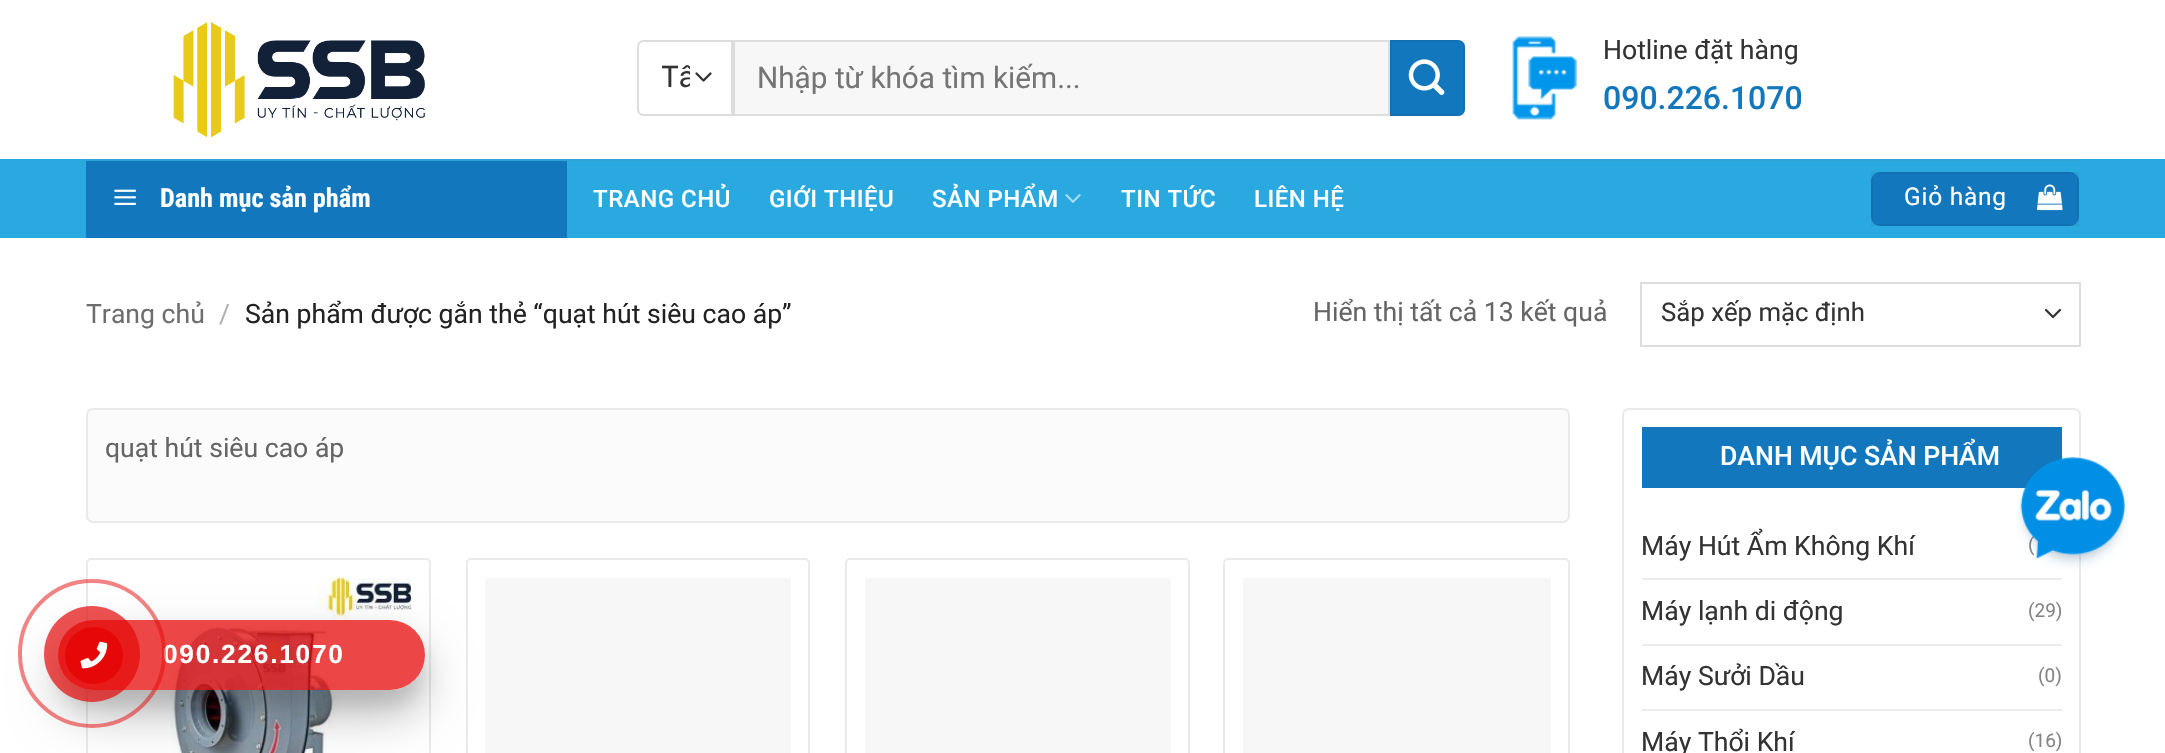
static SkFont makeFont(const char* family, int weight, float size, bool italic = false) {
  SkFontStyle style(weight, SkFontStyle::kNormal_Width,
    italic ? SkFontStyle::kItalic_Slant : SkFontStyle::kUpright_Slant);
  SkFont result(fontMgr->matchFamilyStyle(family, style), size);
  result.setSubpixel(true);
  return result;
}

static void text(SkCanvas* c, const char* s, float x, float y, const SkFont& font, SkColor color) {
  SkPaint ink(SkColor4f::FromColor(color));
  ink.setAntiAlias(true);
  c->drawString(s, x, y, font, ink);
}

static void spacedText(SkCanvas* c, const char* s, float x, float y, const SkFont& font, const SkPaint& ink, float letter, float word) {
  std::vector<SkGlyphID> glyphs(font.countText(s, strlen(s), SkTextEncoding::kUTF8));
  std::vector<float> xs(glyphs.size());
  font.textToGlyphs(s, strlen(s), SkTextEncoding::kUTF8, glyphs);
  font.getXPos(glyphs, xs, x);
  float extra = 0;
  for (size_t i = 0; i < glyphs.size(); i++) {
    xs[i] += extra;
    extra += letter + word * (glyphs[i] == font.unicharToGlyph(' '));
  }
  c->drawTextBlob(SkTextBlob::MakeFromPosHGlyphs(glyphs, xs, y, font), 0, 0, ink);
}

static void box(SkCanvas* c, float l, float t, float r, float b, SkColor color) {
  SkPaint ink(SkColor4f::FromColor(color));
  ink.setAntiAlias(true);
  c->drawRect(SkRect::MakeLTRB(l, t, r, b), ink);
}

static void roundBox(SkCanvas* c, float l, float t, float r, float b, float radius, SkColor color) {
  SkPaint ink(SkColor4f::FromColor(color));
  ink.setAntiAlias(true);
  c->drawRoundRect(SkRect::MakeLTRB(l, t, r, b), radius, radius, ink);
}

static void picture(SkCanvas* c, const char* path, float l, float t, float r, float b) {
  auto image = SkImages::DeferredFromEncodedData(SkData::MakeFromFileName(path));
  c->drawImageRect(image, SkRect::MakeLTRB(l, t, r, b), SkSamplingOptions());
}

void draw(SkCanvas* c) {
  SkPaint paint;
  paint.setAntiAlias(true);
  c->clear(0xffffffff);
  picture(c, "img_01.png", 173, 22, 425, 138);
  paint.setStyle(SkPaint::kStroke_Style);
  paint.setStrokeWidth(2.3f);
  paint.setStrokeCap(SkPaint::kRound_Cap);
  paint.setStrokeJoin(SkPaint::kRound_Join);
  paint.setColor(0xff333333);
  c->drawPath(SkPathBuilder().moveTo(696.5f, 73.5f).lineTo(703.5f, 80.5f).lineTo(710.5f, 73.5f).detach(), paint);
  paint.setStrokeWidth(2);
  paint.setStrokeCap(SkPaint::kButt_Cap);
  paint.setStrokeJoin(SkPaint::kMiter_Join);
  paint.setColor(0xffdddddd);
  c->drawPath(SkPathBuilder().moveTo(644, 41).lineTo(732, 41).lineTo(732, 115).lineTo(644, 115).cubicTo(640.5f, 115, 638, 112.5f, 638, 109).lineTo(638, 47).cubicTo(638, 43.5f, 640.5f, 41, 644, 41).close().detach(), paint);
  c->save();
  c->clipRect(SkRect::MakeLTRB(662, 54, 690, 102));
  SkFont face1 = makeFont("Roboto", 400, 29.75f);
  text(c, "Tấ", 661, 87, face1, 0xff333333);
  c->restore();
  paint.setStyle(SkPaint::kFill_Style);
  paint.setColor(0xfff7f7f7);
  c->drawRect(SkRect::MakeLTRB(734, 41, 1389, 115), paint);
  paint.setStyle(SkPaint::kStroke_Style);
  paint.setColor(0xffdddddd);
  c->drawRect(SkRect::MakeLTRB(734, 41, 1389, 115), paint);
  text(c, "Nhập từ khóa tìm kiếm...", 757, 88, face1, 0xff757575);
  paint.setStyle(SkPaint::kFill_Style);
  paint.setColor(0xff1277bd);
  c->drawPath(SkPathBuilder().moveTo(1390, 40).lineTo(1458, 40).cubicTo(1462, 40, 1465, 43, 1465, 47).lineTo(1465, 109).cubicTo(1465, 113, 1462, 116, 1458, 116).lineTo(1390, 116).close().detach(), paint);
  paint.setStyle(SkPaint::kStroke_Style);
  paint.setColor(0x0d000000);
  c->drawRect(SkRect::MakeLTRB(1391, 41, 1464, 115), paint);
  picture(c, "img_02.png", 1408, 59, 1445, 95);
  picture(c, "img_03.png", 1512, 36, 1577, 120);
  SkFont face2 = makeFont("Roboto", 400, 26.6f);
  text(c, "Hotline đặt hàng", 1603, 59, face2, 0xff333333);
  SkFont face3 = makeFont("Roboto", 500, 32);
  text(c, "090.226.1070", 1603, 109, face3, 0xff1277bd);
  box(c, 0, 159, 2165, 238, 0xff2aa9e0);
  box(c, 86, 159, 2081, 161, 0xff30a2d4);
  box(c, 86, 161, 567, 238, 0xff1277bd);
  picture(c, "img_04.png", 114, 189, 137, 205);
  SkFont face4 = makeFont("Roboto Condensed", 700, 26.25f);
  text(c, "Danh mục sản phẩm", 160, 207, face4, 0xffffffff);
  SkFont face5 = makeFont("Roboto", 500, 24);
  paint.setStyle(SkPaint::kFill_Style);
  paint.setColor(0xffffffff);
  spacedText(c, "TRANG CHỦ", 593, 207, face5, paint, 0.5f, 0);
  spacedText(c, "GIỚI THIỆU", 769, 207, face5, paint, 0.5f, 0);
  spacedText(c, "SẢN PHẨM", 932, 207, face5, paint, 0.5f, 0);
  picture(c, "img_05.png", 1065, 194, 1081, 203);
  spacedText(c, "TIN TỨC", 1121, 207, face5, paint, 0.5f, 0);
  spacedText(c, "LIÊN HỆ", 1254, 207, face5, paint, 0.5f, 0);
  roundBox(c, 1871, 172, 2079, 226, 9, 0xff1277bd);
  paint.setStyle(SkPaint::kStroke_Style);
  paint.setColor(0x0d000000);
  c->drawRect(SkRect::MakeLTRB(1872, 173, 2078, 225), paint);
  SkFont face6 = makeFont("Roboto", 400, 24.5f);
  paint.setStyle(SkPaint::kFill_Style);
  paint.setColor(0xffffffff);
  spacedText(c, "Giỏ hàng", 1904, 205, face6, paint, 0.75f, 0);
  picture(c, "img_06.png", 2037, 184, 2063, 211);
  text(c, "Trang chủ", 86, 323, face2, 0xff6e6e6e);
  text(c, "/", 219, 323, face2, 0xffb2b2b2);
  text(c, "Sản phẩm được gắn thẻ “quạt hút siêu cao áp”", 245, 323, face2, 0xff222222);
  text(c, "Hiển thị tất cả 13 kết quả", 1313, 321, face2, 0xff656565);
  paint.setStyle(SkPaint::kStroke_Style);
  paint.setStrokeWidth(2.3f);
  paint.setStrokeCap(SkPaint::kRound_Cap);
  paint.setStrokeJoin(SkPaint::kRound_Join);
  paint.setColor(0xff333333);
  c->drawPath(SkPathBuilder().moveTo(2046, 310).lineTo(2053, 317).lineTo(2060, 310).detach(), paint);
  paint.setStrokeWidth(2);
  paint.setStrokeCap(SkPaint::kButt_Cap);
  paint.setStrokeJoin(SkPaint::kMiter_Join);
  paint.setColor(0xffdddddd);
  c->drawRect(SkRect::MakeLTRB(1641, 283, 2080, 346), paint);
  SkFont face7 = makeFont("Roboto", 400, 25.75f);
  text(c, "Sắp xếp mặc định", 1661, 321, face7, 0xff333333);
  paint.setStyle(SkPaint::kFill_Style);
  paint.setColor(0xfffbfbfb);
  c->drawRoundRect(SkRect::MakeLTRB(87, 409, 1569, 522), 6, 6, paint);
  paint.setStyle(SkPaint::kStroke_Style);
  paint.setColor(0xffeaeaea);
  c->drawRoundRect(SkRect::MakeLTRB(87, 409, 1569, 522), 6, 6, paint);
  text(c, "quạt hút siêu cao áp", 105, 457, face2, 0xff656565);
  c->drawRoundRect(SkRect::MakeLTRB(87, 559, 430, 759), 4, 4, paint);
  picture(c, "img_07.png", 170, 577, 412, 753);
  c->drawRoundRect(SkRect::MakeLTRB(467, 559, 809, 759), 4, 4, paint);
  box(c, 485, 578, 791, 753, 0xfff7f7f7);
  c->drawRoundRect(SkRect::MakeLTRB(846, 559, 1189, 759), 4, 4, paint);
  box(c, 865, 578, 1171, 753, 0xfff7f7f7);
  c->drawRoundRect(SkRect::MakeLTRB(1224, 559, 1569, 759), 4, 4, paint);
  box(c, 1243, 578, 1551, 753, 0xfff7f7f7);
  c->drawRoundRect(SkRect::MakeLTRB(1623, 409, 2080, 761), 6, 6, paint);
  box(c, 1642, 427, 2062, 488, 0xff1277bd);
  SkFont face8 = makeFont("Roboto", 500, 26.6f);
  text(c, "DANH MỤC SẢN PHẨM", 1720, 465, face8, 0xffffffff);
  text(c, "Máy Hút Ẩm Không Khí", 1641, 555, face2, 0xff333333);
  SkFont face9 = makeFont("Roboto", 400, 19);
  text(c, "(", 2028, 551, face9, 0xff848484);
  box(c, 1642, 578, 2062, 580, 0xffececec);
  text(c, "Máy lạnh di động", 1641, 620, face2, 0xff333333);
  text(c, "(29)", 2028, 617, face9, 0xff848484);
  box(c, 1642, 644, 2062, 646, 0xffececec);
  text(c, "Máy Sưởi Dầu", 1641, 685, face2, 0xff333333);
  text(c, "(0)", 2038, 682, face9, 0xff848484);
  box(c, 1642, 709, 2062, 711, 0xffececec);
  text(c, "Máy Thổi Khí", 1641, 751, face2, 0xff333333);
  text(c, "(16)", 2028, 747, face9, 0xff848484);
  picture(c, "img_08.png", 2017, 457, 2128, 569);
  c->save();
  c->clipPath(SkPathBuilder(SkPathFillType::kEvenOdd).moveTo(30, 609).lineTo(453, 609).lineTo(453, 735).lineTo(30, 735).close().moveTo(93, 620).lineTo(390, 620).cubicTo(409.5f, 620, 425, 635.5f, 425, 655).cubicTo(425, 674.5f, 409.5f, 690, 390, 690).lineTo(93, 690).cubicTo(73.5f, 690, 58, 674.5f, 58, 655).cubicTo(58, 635.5f, 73.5f, 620, 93, 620).close().detach(), true);
  paint.setStyle(SkPaint::kFill_Style);
  paint.setColor(0x1a000000);
  paint.setMaskFilter(SkMaskFilter::MakeBlur(kNormal_SkBlurStyle, 9));
  c->drawRoundRect(SkRect::MakeLTRB(58, 637, 425, 707), 35, 35, paint);
  paint.setMaskFilter(nullptr);
  c->restore();
  c->save();
  c->clipPath(SkPathBuilder(SkPathFillType::kEvenOdd).moveTo(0, 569).lineTo(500, 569).lineTo(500, 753).lineTo(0, 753).close().moveTo(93, 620).lineTo(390, 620).cubicTo(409.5f, 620, 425, 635.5f, 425, 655).cubicTo(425, 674.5f, 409.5f, 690, 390, 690).lineTo(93, 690).cubicTo(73.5f, 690, 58, 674.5f, 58, 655).cubicTo(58, 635.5f, 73.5f, 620, 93, 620).close().detach(), true);
  paint.setColor(0x40000000);
  paint.setMaskFilter(SkMaskFilter::MakeBlur(kNormal_SkBlurStyle, 24.5f));
  c->drawRoundRect(SkRect::MakeLTRB(58, 644, 425, 714), 35, 35, paint);
  paint.setMaskFilter(nullptr);
  c->restore();
  roundBox(c, 58, 620, 425, 690, 35, 0xbfe60808);
  SkFont face10 = makeFont("Liberation Sans", 700, 26.25f);
  paint.setColor(0xffffffff);
  spacedText(c, "090.226.1070", 163, 663, face10, paint, 1.75f, 0);
  paint.setStyle(SkPaint::kStroke_Style);
  paint.setStrokeWidth(4);
  paint.setColor(0x80e60808);
  c->drawRoundRect(SkRect::MakeLTRB(20, 581, 164, 726), 72, 72, paint);
  paint.setStyle(SkPaint::kFill_Style);
  paint.setColor(0xb3e60808);
  c->drawCircle(92, 654, 48, paint);
  roundBox(c, 65, 627, 123, 684, 28.5f, 0xffe60808);
  picture(c, "img_09.png", 80, 641, 108, 669);
}
